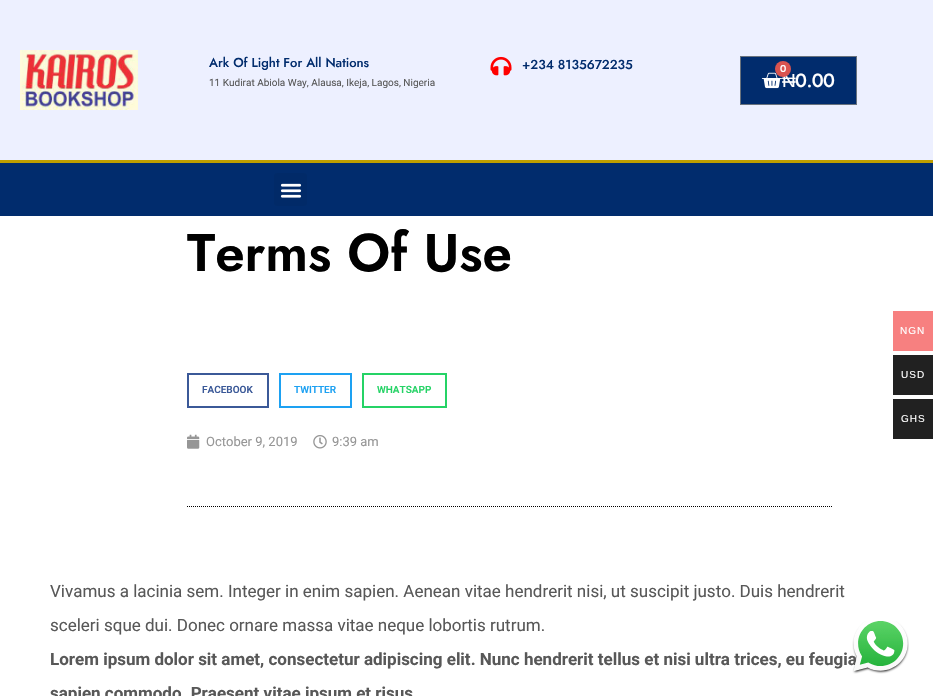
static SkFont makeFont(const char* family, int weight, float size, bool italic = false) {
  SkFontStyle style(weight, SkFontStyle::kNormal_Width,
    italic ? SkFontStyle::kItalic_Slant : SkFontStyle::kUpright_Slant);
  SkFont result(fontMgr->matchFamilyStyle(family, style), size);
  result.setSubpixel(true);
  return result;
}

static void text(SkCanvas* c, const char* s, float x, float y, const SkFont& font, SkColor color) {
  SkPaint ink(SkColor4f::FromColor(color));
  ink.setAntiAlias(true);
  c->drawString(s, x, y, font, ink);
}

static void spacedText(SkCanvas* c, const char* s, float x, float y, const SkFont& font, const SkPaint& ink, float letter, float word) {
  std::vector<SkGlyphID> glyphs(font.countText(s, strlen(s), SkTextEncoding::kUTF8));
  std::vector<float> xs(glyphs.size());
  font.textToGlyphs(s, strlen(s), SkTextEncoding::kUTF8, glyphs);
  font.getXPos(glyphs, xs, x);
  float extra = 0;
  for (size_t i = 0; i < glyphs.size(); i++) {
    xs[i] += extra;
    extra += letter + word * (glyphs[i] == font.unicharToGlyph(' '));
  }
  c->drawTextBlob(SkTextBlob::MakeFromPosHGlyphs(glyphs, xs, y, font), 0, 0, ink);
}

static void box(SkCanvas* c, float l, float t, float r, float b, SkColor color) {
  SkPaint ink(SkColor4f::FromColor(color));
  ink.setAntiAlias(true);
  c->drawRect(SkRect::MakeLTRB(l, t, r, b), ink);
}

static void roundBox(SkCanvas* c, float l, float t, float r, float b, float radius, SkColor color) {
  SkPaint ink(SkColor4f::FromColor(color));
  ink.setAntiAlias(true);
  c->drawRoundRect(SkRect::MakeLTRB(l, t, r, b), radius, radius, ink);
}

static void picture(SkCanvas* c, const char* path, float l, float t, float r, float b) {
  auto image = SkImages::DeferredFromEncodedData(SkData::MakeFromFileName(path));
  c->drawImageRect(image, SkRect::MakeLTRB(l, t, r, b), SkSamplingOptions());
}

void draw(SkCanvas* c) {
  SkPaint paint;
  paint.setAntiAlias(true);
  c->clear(0xffffffff);
  box(c, 0, 0, 933, 160, 0xffedf0ff);
  picture(c, "img_01.png", 20, 50, 138, 110);
  SkFont face1 = makeFont("Jost", 500, 13);
  text(c, "Ark Of Light For All Nations", 209, 67, face1, 0xff012c6d);
  SkFont face2 = makeFont("Roboto", 400, 10);
  text(c, "11 Kudirat Abiola Way, Alausa, Ikeja, Lagos, Nigeria", 209, 86, face2, 0xff585858);
  picture(c, "img_02.png", 490, 56, 512, 76);
  text(c, "+234 8135672235", 522, 69, face1, 0xff012c6d);
  paint.setColor(0xff012c6d);
  c->drawRect(SkRect::MakeLTRB(740.5f, 56.5f, 856.5f, 104.5f), paint);
  paint.setStyle(SkPaint::kStroke_Style);
  paint.setStrokeWidth(1);
  paint.setColor(0xff69727d);
  c->drawRect(SkRect::MakeLTRB(740.5f, 56.5f, 856.5f, 104.5f), paint);
  picture(c, "img_03.png", 761, 72, 782, 89);
  SkFont face3 = makeFont("Liberation Sans", 400, 19);
  paint.setStyle(SkPaint::kFill_Style);
  paint.setColor(0xffffffff);
  spacedText(c, "₦", 782, 87, face3, paint, -0.5f, 0);
  paint.setColor(0xffd9534f);
  c->drawCircle(783, 69, 8, paint);
  SkFont face4 = makeFont("Jost", 500, 10);
  paint.setColor(0xffffffff);
  spacedText(c, "0", 780, 72, face4, paint, -0.5f, 0);
  SkFont face5 = makeFont("Jost", 500, 19);
  spacedText(c, "0.00", 795, 87, face5, paint, -0.5f, 0);
  box(c, 0, 163, 933, 216, 0xff012c6d);
  box(c, 0, 160, 933, 163, 0xffbf9f00);
  roundBox(c, 274, 173, 307, 206, 3, 0xff012a68);
  picture(c, "img_04.png", 280, 183, 302, 198);
  SkFont face6 = makeFont("Jost", 600, 53);
  text(c, "Terms Of Use", 187, 271, face6, 0xff000000);
  paint.setStyle(SkPaint::kStroke_Style);
  paint.setStrokeWidth(2);
  paint.setColor(0xff3b5998);
  c->drawRect(SkRect::MakeLTRB(188, 374, 268, 407), paint);
  SkFont face7 = makeFont("Roboto", 600, 10);
  text(c, "FACEBOOK", 202, 393, face7, 0xff3b5998);
  paint.setColor(0xff1da1f2);
  c->drawRect(SkRect::MakeLTRB(280, 374, 351, 407), paint);
  text(c, "TWITTER", 294, 393, face7, 0xff1da1f2);
  paint.setColor(0xff25d366);
  c->drawRect(SkRect::MakeLTRB(363, 374, 446, 407), paint);
  text(c, "WHATSAPP", 377, 393, face7, 0xff25d366);
  picture(c, "img_05.png", 187, 434, 200, 449);
  SkFont face8 = makeFont("Roboto", 400, 13);
  text(c, "October 9, 2019", 206, 446, face8, 0xff969696);
  picture(c, "img_06.png", 313, 435, 327, 449);
  text(c, "9:39 am", 332, 446, face8, 0xff969696);
  paint.setStrokeWidth(1);
  paint.setColor(0xff000000);
  paint.setPathEffect(SkDashPathEffect::Make({{1, 1}}, 0));
  c->drawPath(SkPathBuilder().moveTo(187, 506.5f).lineTo(833, 506.5f).detach(), paint);
  paint.setPathEffect(nullptr);
  SkFont face9 = makeFont("Roboto", 400, 17);
  text(c, "Vivamus a lacinia sem. Integer in enim sapien. Aenean vitae hendrerit nisi, ut suscipit justo. Duis hendrerit", 50, 597, face9, 0xff585858);
  text(c, "sceleri sque dui. Donec ornare massa vitae neque lobortis rutrum.", 50, 631, face9, 0xff585858);
  SkFont face10 = makeFont("Roboto", 700, 17);
  text(c, "Lorem ipsum dolor sit amet, consectetur adipiscing elit. Nunc hendrerit tellus et nisi ultra trices, eu feugia", 50, 665, face10, 0xff585858);
  text(c, "sapien commodo. Praesent vitae ipsum et risus", 50, 699, face10, 0xff585858);
  box(c, 893, 311, 933, 351, 0xfff78080);
  SkFont face11 = makeFont("Liberation Sans", 400, 10);
  paint.setStyle(SkPaint::kFill_Style);
  paint.setColor(0xffffffff);
  spacedText(c, "NGN", 900, 334, face11, paint, 1, 0);
  box(c, 893, 355, 933, 395, 0xff212121);
  spacedText(c, "USD", 901, 378, face11, paint, 1, 0);
  box(c, 893, 399, 933, 439, 0xff212121);
  spacedText(c, "GHS", 901, 422, face11, paint, 1, 0);
  picture(c, "img_07.png", 852, 621, 909, 674);
}
